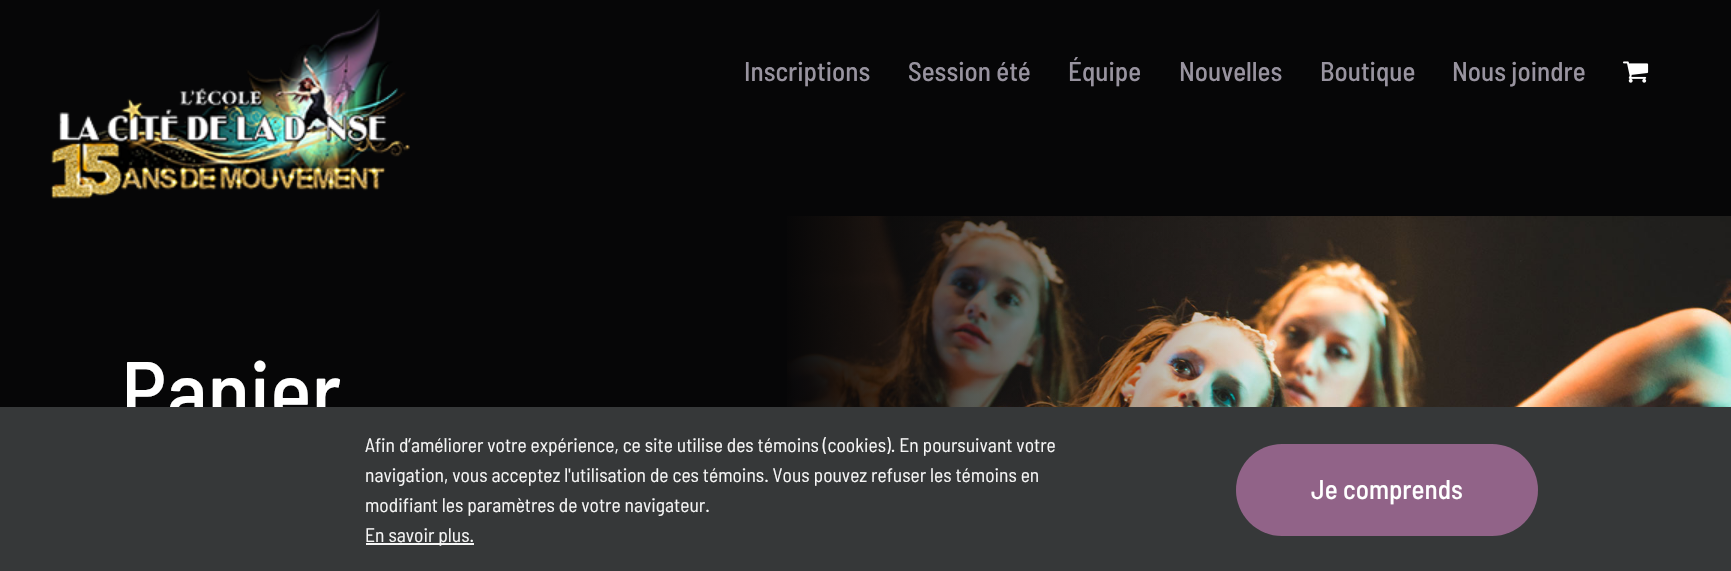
static SkFont makeFont(const char* family, int weight, float size, bool italic = false) {
  SkFontStyle style(weight, SkFontStyle::kNormal_Width,
    italic ? SkFontStyle::kItalic_Slant : SkFontStyle::kUpright_Slant);
  SkFont result(fontMgr->matchFamilyStyle(family, style), size);
  result.setSubpixel(true);
  return result;
}

static void text(SkCanvas* c, const char* s, float x, float y, const SkFont& font, SkColor color) {
  SkPaint ink(SkColor4f::FromColor(color));
  ink.setAntiAlias(true);
  c->drawString(s, x, y, font, ink);
}

static void box(SkCanvas* c, float l, float t, float r, float b, SkColor color) {
  SkPaint ink(SkColor4f::FromColor(color));
  ink.setAntiAlias(true);
  c->drawRect(SkRect::MakeLTRB(l, t, r, b), ink);
}

static void roundBox(SkCanvas* c, float l, float t, float r, float b, float radius, SkColor color) {
  SkPaint ink(SkColor4f::FromColor(color));
  ink.setAntiAlias(true);
  c->drawRoundRect(SkRect::MakeLTRB(l, t, r, b), radius, radius, ink);
}

static void picture(SkCanvas* c, const char* path, float l, float t, float r, float b) {
  auto image = SkImages::DeferredFromEncodedData(SkData::MakeFromFileName(path));
  c->drawImageRect(image, SkRect::MakeLTRB(l, t, r, b), SkSamplingOptions());
}

void draw(SkCanvas* c) {
  SkPaint paint;
  paint.setAntiAlias(true);
  c->clear(0xff060607);
  picture(c, "img_01.png", 50, 9, 410, 199);
  SkFont face1 = makeFont("Barlow Semi Condensed", 500, 27);
  text(c, "Inscriptions", 744, 81, face1, 0xff98939f);
  text(c, "Session été", 908, 81, face1, 0xff98939f);
  text(c, "Équipe", 1068, 81, face1, 0xff98939f);
  text(c, "Nouvelles", 1179, 81, face1, 0xff98939f);
  text(c, "Boutique", 1320, 81, face1, 0xff98939f);
  text(c, "Nous joindre", 1452, 81, face1, 0xff98939f);
  picture(c, "img_02.png", 1623, 61, 1649, 83);
  picture(c, "img_03.png", 787, 216, 1731, 407);
  SkFont face2 = makeFont("Barlow Semi Condensed", 500, 87);
  text(c, "Panier", 121, 423, face2, 0xffffffff);
  box(c, 0, 407, 1731, 571, 0xff363839);
  SkFont face3 = makeFont("Barlow Semi Condensed", 400, 19.5f);
  text(c, "Afin d’améliorer votre expérience, ce site utilise des témoins (cookies). En poursuivant votre", 365, 452, face3, 0xfff6f6f6);
  text(c, "navigation, vous acceptez l'utilisation de ces témoins. Vous pouvez refuser les témoins en", 365, 482, face3, 0xfff6f6f6);
  text(c, "modifiant les paramètres de votre navigateur.", 365, 512, face3, 0xfff6f6f6);
  box(c, 366, 543, 474, 545, 0xfff6f6f6);
  text(c, "En savoir plus.", 365, 542, face3, 0xfff6f6f6);
  roundBox(c, 1236, 444, 1538, 536, 46, 0xff916388);
  text(c, "Je comprends", 1311, 499, face1, 0xffffffff);
}
